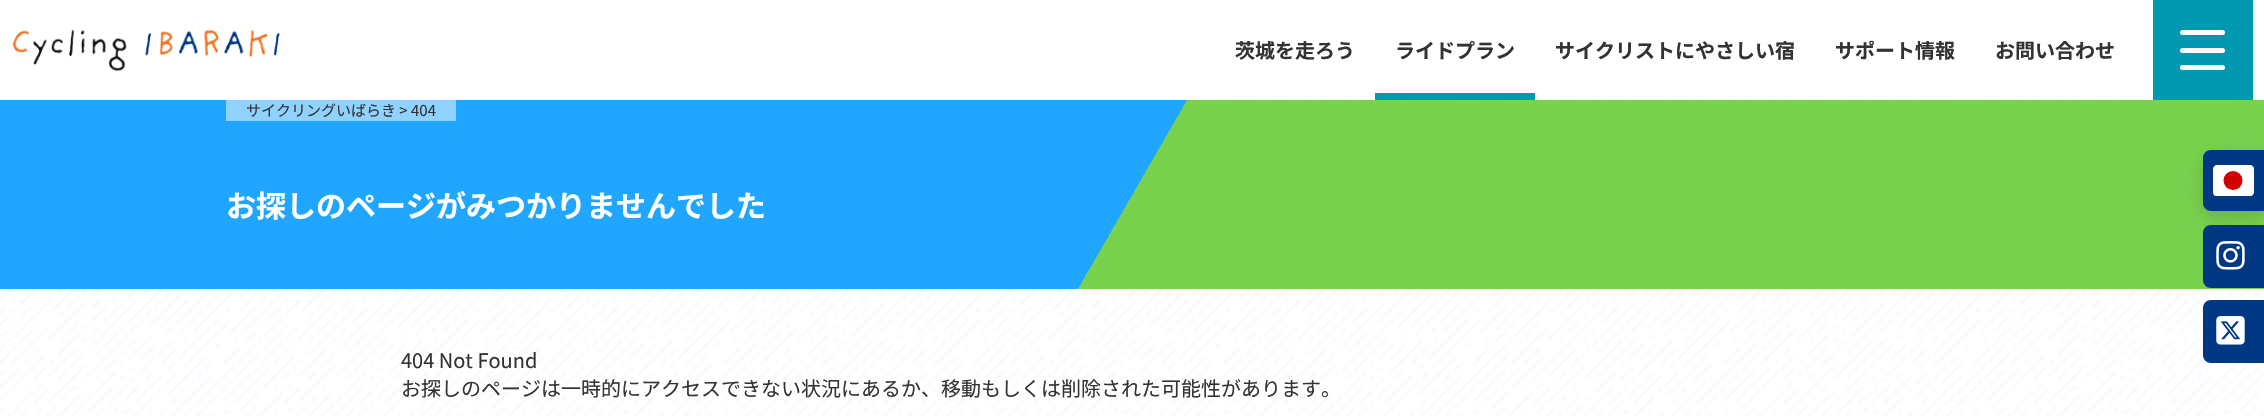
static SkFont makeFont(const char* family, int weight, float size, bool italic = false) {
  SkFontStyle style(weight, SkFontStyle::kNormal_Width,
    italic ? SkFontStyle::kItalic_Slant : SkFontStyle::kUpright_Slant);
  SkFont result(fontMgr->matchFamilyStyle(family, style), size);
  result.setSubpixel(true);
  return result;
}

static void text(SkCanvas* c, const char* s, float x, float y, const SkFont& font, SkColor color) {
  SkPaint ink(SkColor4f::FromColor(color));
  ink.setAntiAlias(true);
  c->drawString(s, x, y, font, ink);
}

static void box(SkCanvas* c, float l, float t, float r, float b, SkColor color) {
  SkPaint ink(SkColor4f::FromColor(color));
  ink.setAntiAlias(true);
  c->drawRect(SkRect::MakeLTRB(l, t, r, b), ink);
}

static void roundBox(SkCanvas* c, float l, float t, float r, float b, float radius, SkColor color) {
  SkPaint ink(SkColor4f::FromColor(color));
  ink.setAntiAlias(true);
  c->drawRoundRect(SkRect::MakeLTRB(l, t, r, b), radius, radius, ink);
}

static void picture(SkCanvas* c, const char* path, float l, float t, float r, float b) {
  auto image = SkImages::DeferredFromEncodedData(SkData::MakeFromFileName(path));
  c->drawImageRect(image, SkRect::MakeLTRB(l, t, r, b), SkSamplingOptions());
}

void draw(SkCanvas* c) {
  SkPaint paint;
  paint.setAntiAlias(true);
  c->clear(0xffffffff);
  picture(c, "img_01.png", 0, 100, 2264, 416);
  picture(c, "img_02.png", 12, 29, 280, 72);
  SkFont face1 = makeFont("Noto Sans JP", 700, 20);
  text(c, "茨城を走ろう", 1235, 58, face1, 0xff333333);
  text(c, "ライドプラン", 1395, 58, face1, 0xff333333);
  box(c, 1375, 93, 1535, 100, 0xff0099b1);
  text(c, "サイクリストにやさしい宿", 1555, 58, face1, 0xff333333);
  text(c, "サポート情報", 1835, 58, face1, 0xff333333);
  text(c, "お問い合わせ", 1995, 58, face1, 0xff333333);
  box(c, 2153, 0, 2253, 100, 0xff0099b1);
  roundBox(c, 2180, 30, 2225, 35, 2.5f, 0xffffffff);
  roundBox(c, 2180, 48, 2225, 53, 2.5f, 0xffffffff);
  roundBox(c, 2180, 65, 2225, 70, 2.5f, 0xffffffff);
  {
    const SkColor colors[] = {0x8066cc33, 0x800099ff};
    const float stops[] = {0.5f, 0.5f};
    const SkPoint ends[] = {{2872, 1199}, {-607, -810}};
    paint.setShader(SkGradientShader::MakeLinear(ends, colors, stops, 2, SkTileMode::kClamp));
    paint.setAlpha(255);
  }
  c->drawRect(SkRect::MakeLTRB(0, 100, 2264, 289), paint);
  c->drawRect(SkRect::MakeLTRB(0, 100, 2264, 289), paint);
  c->drawRect(SkRect::MakeLTRB(0, 100, 2264, 289), paint);
  box(c, 226, 100, 456, 121, 0xff8fd2ff);
  SkFont face2 = makeFont("Noto Sans JP", 400, 15);
  text(c, "サイクリングいばらき > 404", 246, 116, face2, 0xff333333);
  SkFont face3 = makeFont("Noto Sans JP", 700, 30);
  text(c, "お探しのページがみつかりませんでした", 226, 217, face3, 0xffffffff);
  paint.setShader(nullptr);
  paint.setColor(0xff003883);
  c->drawPath(SkPathBuilder().moveTo(2211, 225).lineTo(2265, 225).lineTo(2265, 288).lineTo(2211, 288).cubicTo(2206.5f, 288, 2203, 284.5f, 2203, 280).lineTo(2203, 233).cubicTo(2203, 228.5f, 2206.5f, 225, 2211, 225).close().detach(), paint);
  picture(c, "img_03.png", 2216, 241, 2245, 270);
  paint.setColor(0x26000000);
  paint.setMaskFilter(SkMaskFilter::MakeBlur(kNormal_SkBlurStyle, 9.5f));
  c->drawRoundRect(SkRect::MakeLTRB(2203, 156, 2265, 218), 8, 8, paint);
  paint.setMaskFilter(nullptr);
  paint.setColor(0xff003883);
  c->drawPath(SkPathBuilder().moveTo(2211, 150).lineTo(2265, 150).lineTo(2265, 211).lineTo(2211, 211).cubicTo(2206.5f, 211, 2203, 207.5f, 2203, 203).lineTo(2203, 158).cubicTo(2203, 153.5f, 2206.5f, 150, 2211, 150).close().detach(), paint);
  paint.setColor(0xffffffff);
  c->drawPath(SkPathBuilder().moveTo(2217, 165).lineTo(2250, 165).cubicTo(2252, 165, 2253, 166, 2254, 168).lineTo(2254, 193).cubicTo(2253, 195, 2252, 196, 2251, 196).lineTo(2216, 196).cubicTo(2214, 196, 2213, 194, 2213, 192).lineTo(2213, 169).cubicTo(2213, 167, 2215, 165, 2217, 165).close().detach(), paint);
  paint.setColor(0xffd30000);
  c->drawCircle(2233, 180.5f, 9.5f, paint);
  paint.setColor(0xff003883);
  c->drawPath(SkPathBuilder().moveTo(2211, 300).lineTo(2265, 300).lineTo(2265, 363).lineTo(2211, 363).cubicTo(2206.5f, 363, 2203, 359.5f, 2203, 355).lineTo(2203, 308).cubicTo(2203, 303.5f, 2206.5f, 300, 2211, 300).close().detach(), paint);
  picture(c, "img_04.png", 2216, 316, 2245, 345);
  SkFont face4 = makeFont("Noto Sans JP", 400, 20);
  text(c, "404 Not Found", 401, 368, face4, 0xff333333);
  text(c, "お探しのページは一時的にアクセスできない状況にあるか、移動もしくは削除された可能性があります。", 401, 396, face4, 0xff333333);
}
